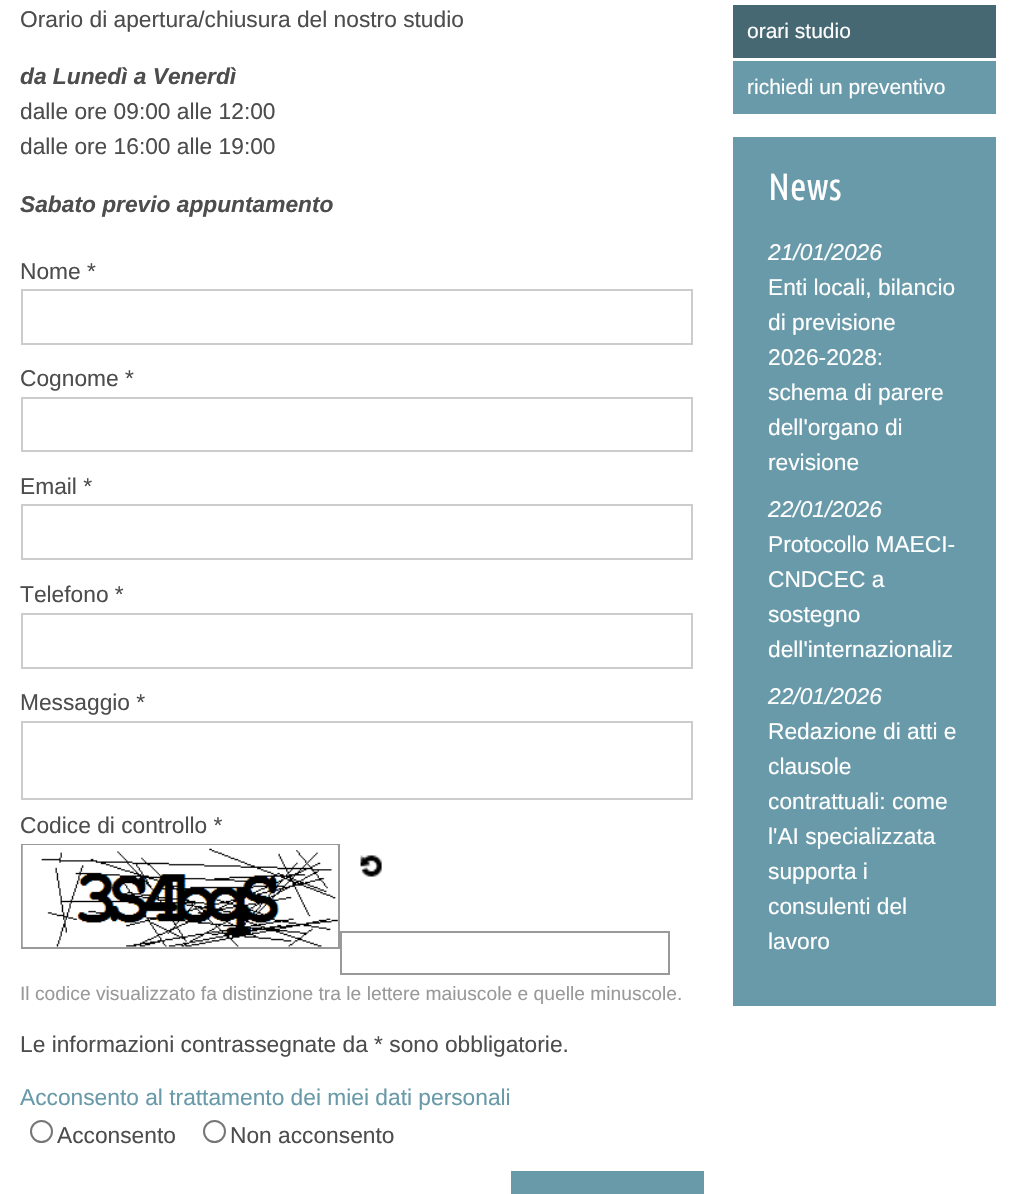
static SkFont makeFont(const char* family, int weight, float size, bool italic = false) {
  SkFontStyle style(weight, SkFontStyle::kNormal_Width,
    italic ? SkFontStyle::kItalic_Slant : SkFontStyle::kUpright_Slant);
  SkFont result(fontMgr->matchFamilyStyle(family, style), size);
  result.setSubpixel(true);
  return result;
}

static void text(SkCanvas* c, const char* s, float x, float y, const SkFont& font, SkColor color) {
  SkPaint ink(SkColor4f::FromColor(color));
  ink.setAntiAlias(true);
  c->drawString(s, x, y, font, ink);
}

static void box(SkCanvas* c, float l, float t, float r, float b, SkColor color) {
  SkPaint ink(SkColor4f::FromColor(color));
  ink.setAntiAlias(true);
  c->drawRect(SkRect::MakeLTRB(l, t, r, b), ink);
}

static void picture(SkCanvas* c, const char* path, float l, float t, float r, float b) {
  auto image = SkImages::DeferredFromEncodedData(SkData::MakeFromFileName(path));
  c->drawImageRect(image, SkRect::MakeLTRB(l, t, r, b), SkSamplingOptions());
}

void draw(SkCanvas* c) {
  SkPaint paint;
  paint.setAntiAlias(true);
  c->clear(0xffffffff);
  SkFont face1 = makeFont("Liberation Sans", 400, 22.75f);
  text(c, "Orario di apertura/chiusura del nostro studio", 20, 27, face1, 0xff4d4d4d);
  SkFont face2 = makeFont("Liberation Sans", 700, 22.75f, true);
  text(c, "da Lunedì a Venerdì", 20, 84, face2, 0xff4d4d4d);
  text(c, "dalle ore 09:00 alle 12:00", 20, 119, face1, 0xff4d4d4d);
  text(c, "dalle ore 16:00 alle 19:00", 20, 154, face1, 0xff4d4d4d);
  text(c, "Sabato previo appuntamento", 20, 212, face2, 0xff4d4d4d);
  text(c, "Nome *", 20, 279, face1, 0xff4d4d4d);
  paint.setStyle(SkPaint::kStroke_Style);
  paint.setStrokeWidth(2);
  paint.setColor(0xffcccccc);
  c->drawRect(SkRect::MakeLTRB(22, 290, 692, 344), paint);
  text(c, "Cognome *", 20, 386, face1, 0xff4d4d4d);
  c->drawRect(SkRect::MakeLTRB(22, 398, 692, 451), paint);
  text(c, "Email *", 20, 494, face1, 0xff4d4d4d);
  c->drawRect(SkRect::MakeLTRB(22, 505, 692, 559), paint);
  text(c, "Telefono *", 20, 602, face1, 0xff4d4d4d);
  c->drawRect(SkRect::MakeLTRB(22, 614, 692, 668), paint);
  text(c, "Messaggio *", 20, 710, face1, 0xff4d4d4d);
  c->drawRect(SkRect::MakeLTRB(22, 722, 692, 799), paint);
  text(c, "Codice di controllo *", 20, 833, face1, 0xff4d4d4d);
  paint.setColor(0xff999999);
  c->drawRect(SkRect::MakeLTRB(22, 845, 339, 948), paint);
  picture(c, "img_01.png", 22, 845, 338, 947);
  picture(c, "img_02.png", 360, 855, 382, 877);
  c->drawRect(SkRect::MakeLTRB(341, 932, 669, 974), paint);
  SkFont face3 = makeFont("Liberation Sans", 400, 19.25f);
  text(c, "Il codice visualizzato fa distinzione tra le lettere maiuscole e quelle minuscole.", 20, 1000, face3, 0xff999999);
  text(c, "Le informazioni contrassegnate da * sono obbligatorie.", 20, 1052, face1, 0xff4d4d4d);
  text(c, "Acconsento al trattamento dei miei dati personali", 20, 1105, face1, 0xff699aa9);
  paint.setColor(0xff767676);
  c->drawCircle(41.5f, 1131.5f, 10.5f, paint);
  text(c, "Acconsento", 57, 1143, face1, 0xff4d4d4d);
  c->drawCircle(214.5f, 1131.5f, 10.5f, paint);
  text(c, "Non acconsento", 230, 1143, face1, 0xff4d4d4d);
  box(c, 511, 1171, 704, 1194, 0xff699aa9);
  box(c, 733, 5, 996, 58, 0xff456873);
  SkFont face4 = makeFont("Liberation Sans", 400, 21);
  text(c, "orari studio", 747, 38, face4, 0xffffffff);
  box(c, 733, 61, 996, 114, 0xff699aa9);
  text(c, "richiedi un preventivo", 747, 94, face4, 0xffffffff);
  box(c, 733, 137, 996, 1006, 0xff699aa9);
  SkFont face5 = makeFont("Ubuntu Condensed", 400, 38);
  text(c, "News", 768, 200, face5, 0xffffffff);
  SkFont face6 = makeFont("Liberation Sans", 400, 22.75f, true);
  text(c, "21/01/2026", 768, 260, face6, 0xffffffff);
  text(c, "Enti locali, bilancio", 768, 295, face1, 0xffffffff);
  text(c, "di previsione", 768, 330, face1, 0xffffffff);
  text(c, "2026-2028:", 768, 365, face1, 0xffffffff);
  text(c, "schema di parere", 768, 400, face1, 0xffffffff);
  text(c, "dell'organo di", 768, 435, face1, 0xffffffff);
  text(c, "revisione", 768, 470, face1, 0xffffffff);
  text(c, "22/01/2026", 768, 517, face6, 0xffffffff);
  text(c, "Protocollo MAECI-", 768, 552, face1, 0xffffffff);
  text(c, "CNDCEC a", 768, 587, face1, 0xffffffff);
  text(c, "sostegno", 768, 622, face1, 0xffffffff);
  text(c, "dell'internazionaliz", 768, 657, face1, 0xffffffff);
  text(c, "22/01/2026", 768, 704, face6, 0xffffffff);
  text(c, "Redazione di atti e", 768, 739, face1, 0xffffffff);
  text(c, "clausole", 768, 774, face1, 0xffffffff);
  text(c, "contrattuali: come", 768, 809, face1, 0xffffffff);
  text(c, "l'AI specializzata", 768, 844, face1, 0xffffffff);
  text(c, "supporta i", 768, 879, face1, 0xffffffff);
  text(c, "consulenti del", 768, 914, face1, 0xffffffff);
  text(c, "lavoro", 768, 949, face1, 0xffffffff);
}
